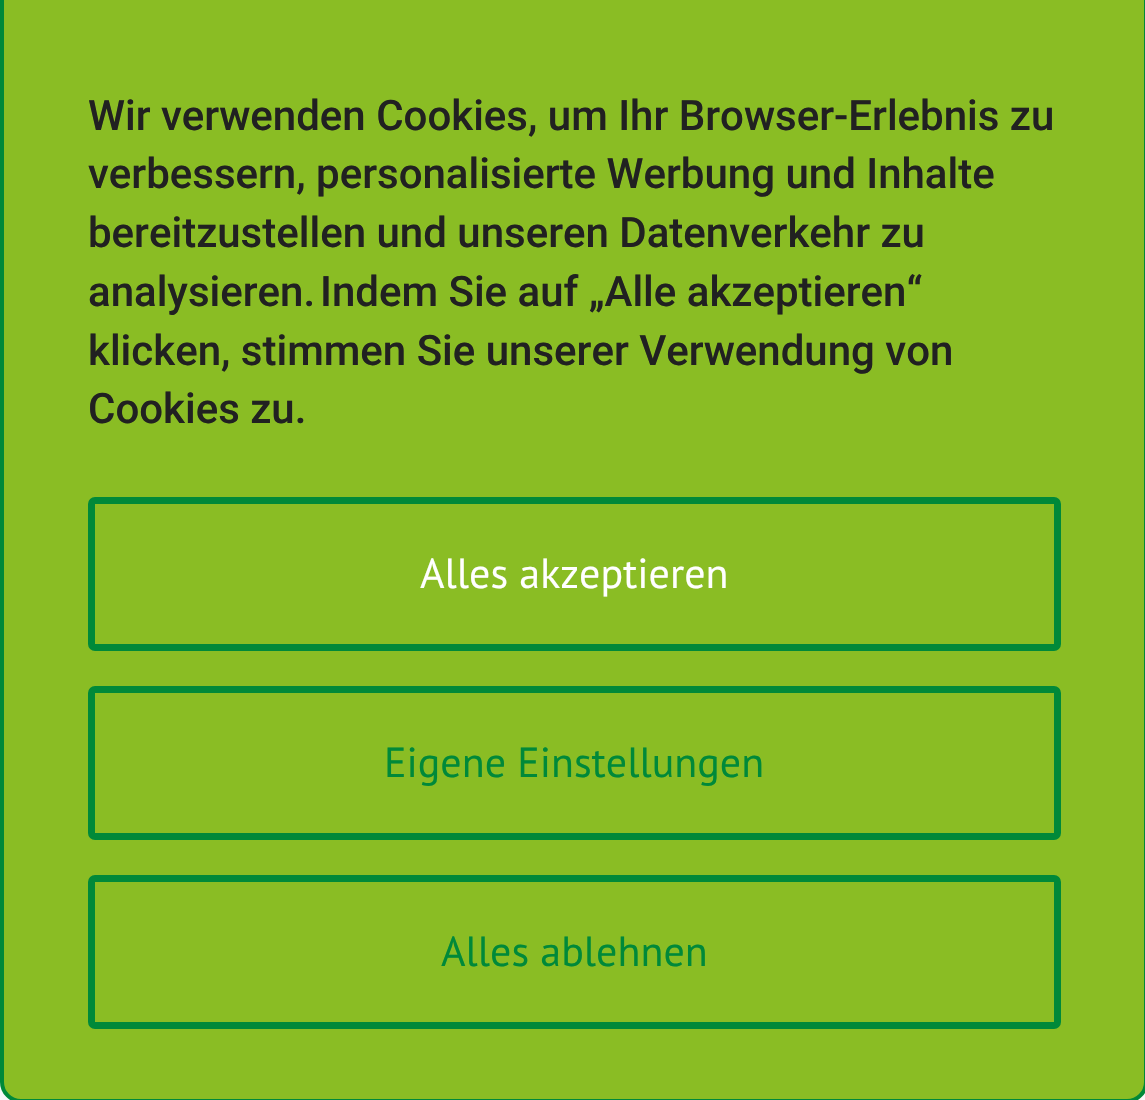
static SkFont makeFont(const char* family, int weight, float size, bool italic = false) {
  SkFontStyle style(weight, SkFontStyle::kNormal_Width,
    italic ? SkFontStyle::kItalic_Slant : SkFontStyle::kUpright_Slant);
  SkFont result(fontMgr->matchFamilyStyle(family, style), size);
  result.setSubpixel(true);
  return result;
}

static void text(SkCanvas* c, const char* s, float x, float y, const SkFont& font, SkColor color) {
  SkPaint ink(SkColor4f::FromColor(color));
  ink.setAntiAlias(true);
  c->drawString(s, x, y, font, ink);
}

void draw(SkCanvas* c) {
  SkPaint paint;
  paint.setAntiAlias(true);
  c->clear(0xffffffff);
  paint.setColor(0x4dacabab);
  paint.setMaskFilter(SkMaskFilter::MakeBlur(kNormal_SkBlurStyle, 17.5f));
  c->drawRoundRect(SkRect::MakeLTRB(0, -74, 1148, 1099), 21, 21, paint);
  paint.setMaskFilter(nullptr);
  paint.setColor(0xff8abd24);
  c->drawRoundRect(SkRect::MakeLTRB(2, -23, 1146, 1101), 19, 19, paint);
  paint.setStyle(SkPaint::kStroke_Style);
  paint.setStrokeWidth(4);
  paint.setColor(0xff008939);
  c->drawRoundRect(SkRect::MakeLTRB(2, -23, 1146, 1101), 19, 19, paint);
  SkFont face1 = makeFont("Roboto", 500, 42);
  text(c, "Wir verwenden Cookies, um Ihr Browser-Erlebnis zu", 88, 130, face1, 0xff212121);
  text(c, "verbessern, personalisierte Werbung und Inhalte", 88, 188, face1, 0xff212121);
  text(c, "bereitzustellen und unseren Datenverkehr zu", 88, 247, face1, 0xff212121);
  text(c, "analysieren.", 88, 306, face1, 0xff212121);
  text(c, "Indem Sie auf „Alle akzeptieren“", 320, 306, face1, 0xff212121);
  text(c, "klicken, stimmen Sie unserer Verwendung von", 88, 365, face1, 0xff212121);
  text(c, "Cookies zu.", 88, 423, face1, 0xff212121);
  paint.setStrokeWidth(7);
  c->drawRoundRect(SkRect::MakeLTRB(91.5f, 500.5f, 1057.5f, 647.5f), 3.5f, 3.5f, paint);
  SkFont face2 = makeFont("PT Sans", 400, 42);
  text(c, "Alles akzeptieren", 420, 588, face2, 0xffffffff);
  c->drawRoundRect(SkRect::MakeLTRB(91.5f, 689.5f, 1057.5f, 836.5f), 3.5f, 3.5f, paint);
  text(c, "Eigene Einstellungen", 384, 777, face2, 0xff008939);
  c->drawRoundRect(SkRect::MakeLTRB(91.5f, 878.5f, 1057.5f, 1025.5f), 3.5f, 3.5f, paint);
  text(c, "Alles ablehnen", 441, 966, face2, 0xff008939);
}
